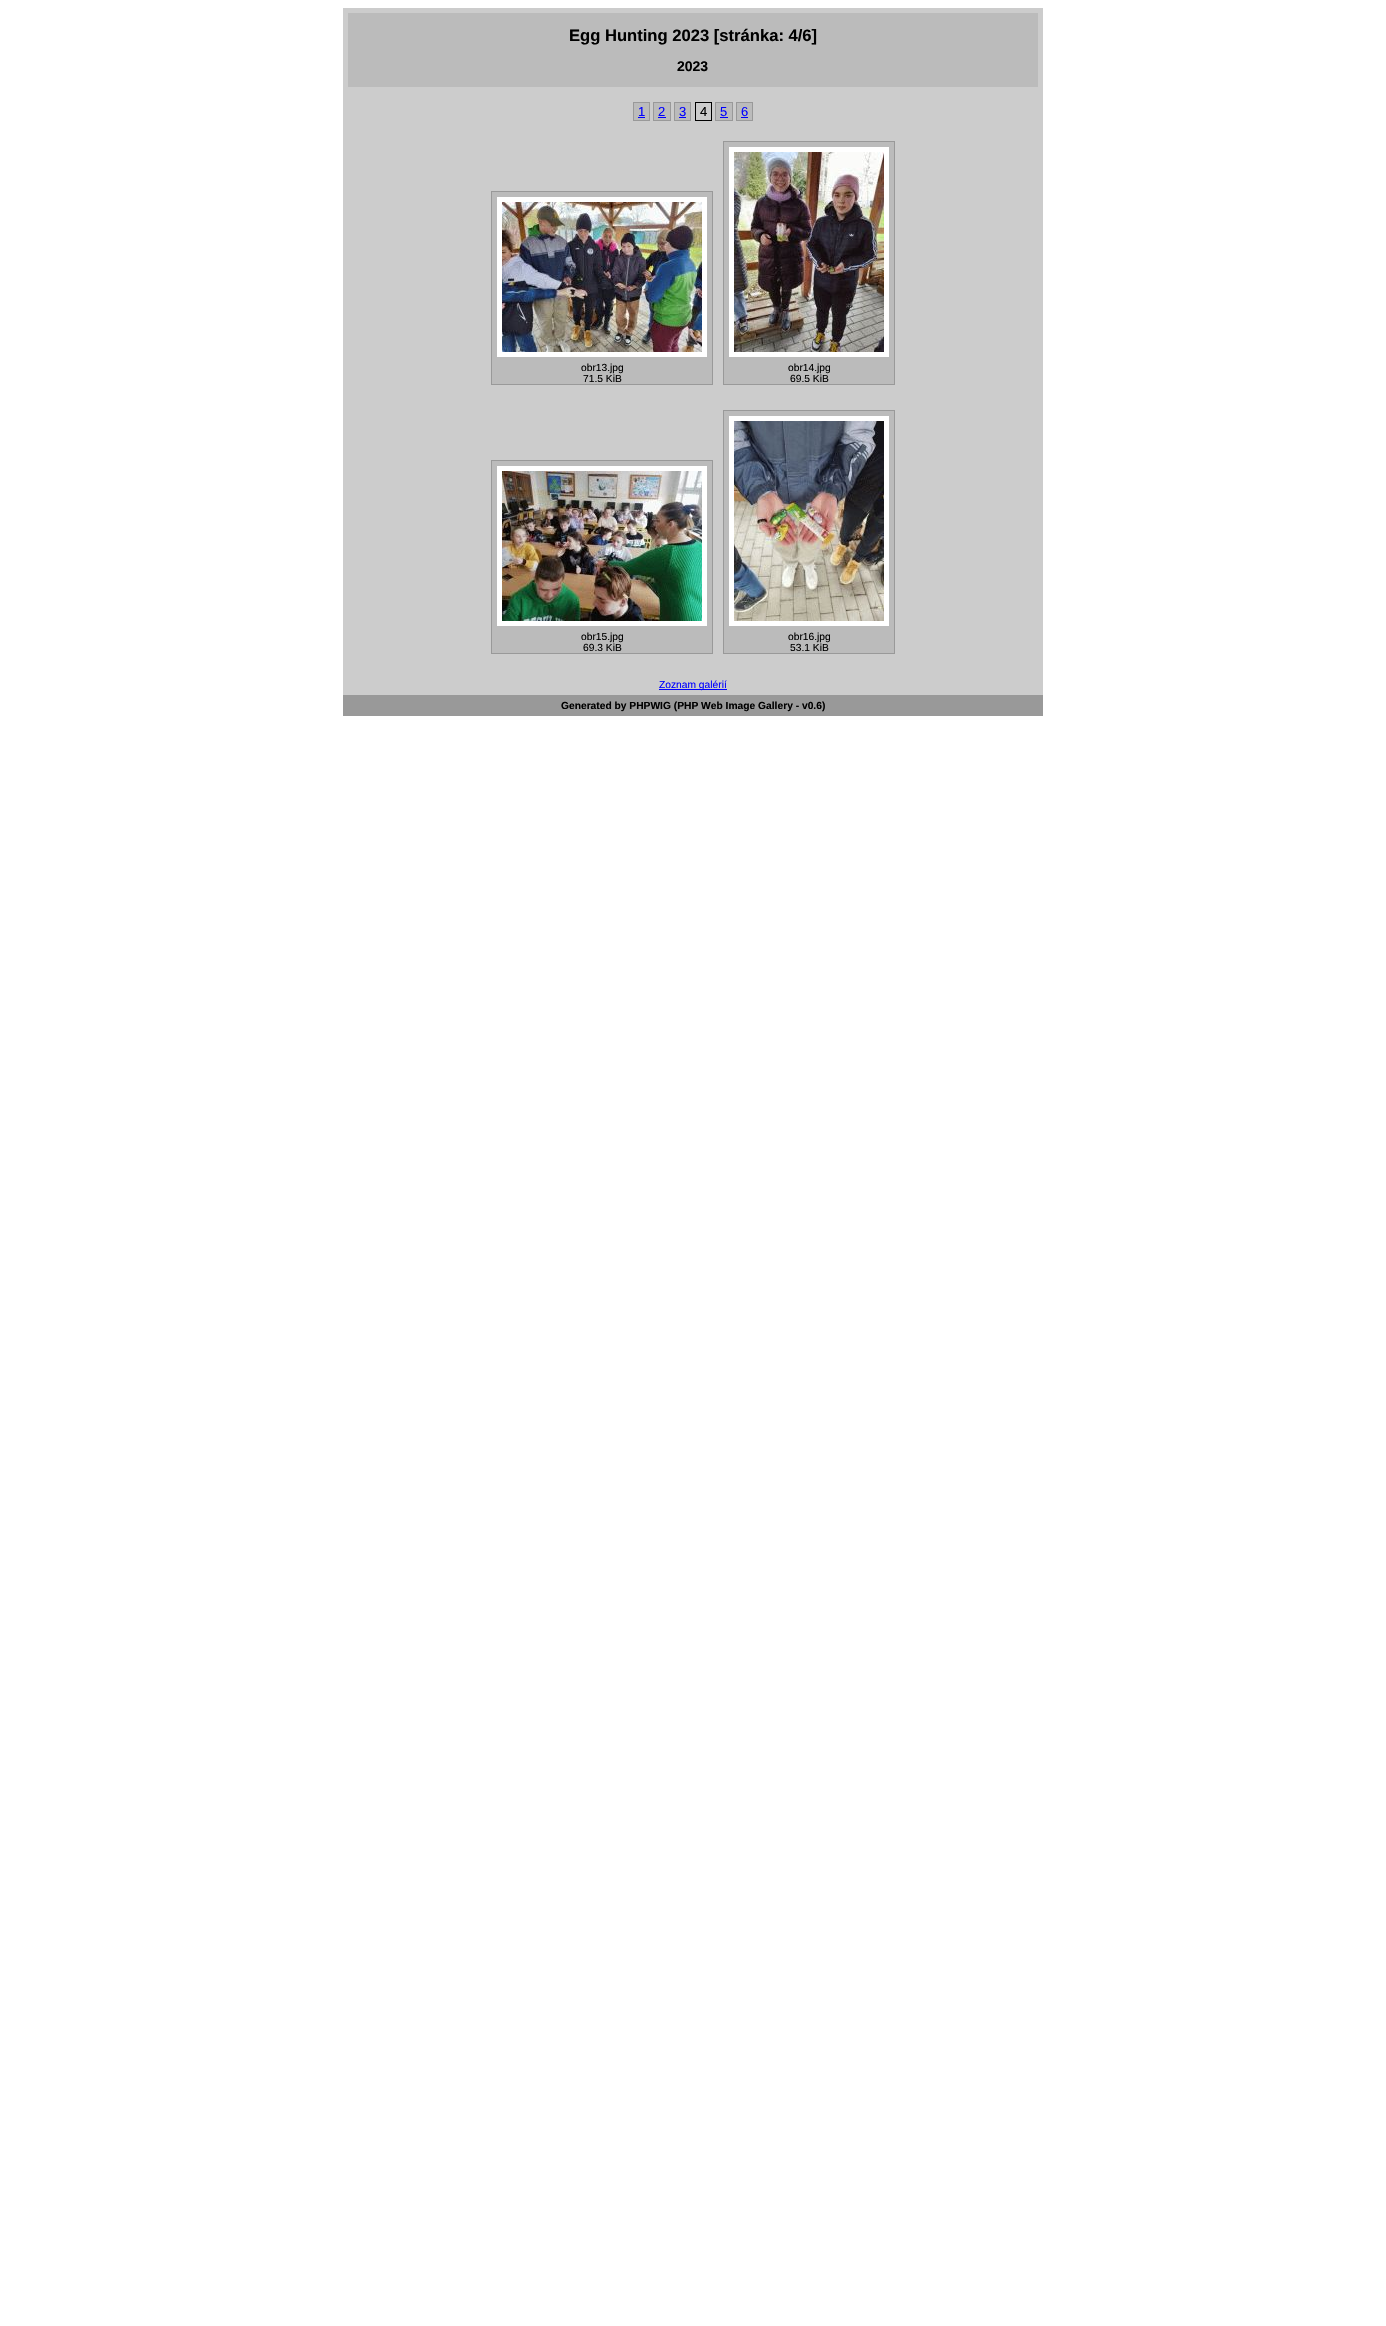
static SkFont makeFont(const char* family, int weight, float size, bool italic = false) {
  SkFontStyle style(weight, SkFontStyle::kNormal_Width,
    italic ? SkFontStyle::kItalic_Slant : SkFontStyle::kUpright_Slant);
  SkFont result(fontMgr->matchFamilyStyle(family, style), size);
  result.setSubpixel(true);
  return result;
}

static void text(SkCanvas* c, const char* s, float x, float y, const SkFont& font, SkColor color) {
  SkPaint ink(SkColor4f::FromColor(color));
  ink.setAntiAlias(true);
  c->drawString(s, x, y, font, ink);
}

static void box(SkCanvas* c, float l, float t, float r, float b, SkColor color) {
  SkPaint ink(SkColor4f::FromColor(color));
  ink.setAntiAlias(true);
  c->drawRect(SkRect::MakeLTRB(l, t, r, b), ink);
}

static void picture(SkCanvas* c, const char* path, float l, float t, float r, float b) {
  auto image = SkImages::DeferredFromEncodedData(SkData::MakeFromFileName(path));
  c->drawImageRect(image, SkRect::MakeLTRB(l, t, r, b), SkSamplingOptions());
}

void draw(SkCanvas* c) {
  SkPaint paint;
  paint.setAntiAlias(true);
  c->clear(0xffffffff);
  box(c, 343, 8, 1043, 695, 0xffcccccc);
  box(c, 348, 13, 1038, 87, 0xffbbbbbb);
  SkFont face1 = makeFont("Liberation Sans", 700, 16.6f);
  text(c, "Egg Hunting 2023 [stránka: 4/6]", 569, 41, face1, 0xff000000);
  SkFont face2 = makeFont("Liberation Sans", 700, 14);
  text(c, "2023", 677, 71, face2, 0xff000000);
  paint.setColor(0xffbbbbbb);
  c->drawRect(SkRect::MakeLTRB(633.5f, 102.5f, 649.5f, 120.5f), paint);
  paint.setStyle(SkPaint::kStroke_Style);
  paint.setStrokeWidth(1);
  paint.setColor(0xff999999);
  c->drawRect(SkRect::MakeLTRB(633.5f, 102.5f, 649.5f, 120.5f), paint);
  SkFont face3 = makeFont("Liberation Sans", 400, 13);
  text(c, "1", 638, 116, face3, 0xff0000ff);
  box(c, 638, 117, 645, 118, 0xff0000ff);
  paint.setStyle(SkPaint::kFill_Style);
  paint.setColor(0xffbbbbbb);
  c->drawRect(SkRect::MakeLTRB(653.5f, 102.5f, 670.5f, 120.5f), paint);
  paint.setStyle(SkPaint::kStroke_Style);
  paint.setColor(0xff999999);
  c->drawRect(SkRect::MakeLTRB(653.5f, 102.5f, 670.5f, 120.5f), paint);
  text(c, "2", 658, 116, face3, 0xff0000ff);
  box(c, 658, 117, 666, 118, 0xff0000ff);
  paint.setStyle(SkPaint::kFill_Style);
  paint.setColor(0xffbbbbbb);
  c->drawRect(SkRect::MakeLTRB(674.5f, 102.5f, 690.5f, 120.5f), paint);
  paint.setStyle(SkPaint::kStroke_Style);
  paint.setColor(0xff999999);
  c->drawRect(SkRect::MakeLTRB(674.5f, 102.5f, 690.5f, 120.5f), paint);
  text(c, "3", 679, 116, face3, 0xff0000ff);
  box(c, 679, 117, 686, 118, 0xff0000ff);
  paint.setColor(0xff000000);
  c->drawRect(SkRect::MakeLTRB(695.5f, 102.5f, 711.5f, 120.5f), paint);
  text(c, "4", 700, 116, face3, 0xff000000);
  paint.setStyle(SkPaint::kFill_Style);
  paint.setColor(0xffbbbbbb);
  c->drawRect(SkRect::MakeLTRB(715.5f, 102.5f, 732.5f, 120.5f), paint);
  paint.setStyle(SkPaint::kStroke_Style);
  paint.setColor(0xff999999);
  c->drawRect(SkRect::MakeLTRB(715.5f, 102.5f, 732.5f, 120.5f), paint);
  text(c, "5", 720, 116, face3, 0xff0000ff);
  box(c, 720, 117, 728, 118, 0xff0000ff);
  paint.setStyle(SkPaint::kFill_Style);
  paint.setColor(0xffbbbbbb);
  c->drawRect(SkRect::MakeLTRB(736.5f, 102.5f, 752.5f, 120.5f), paint);
  paint.setStyle(SkPaint::kStroke_Style);
  paint.setColor(0xff999999);
  c->drawRect(SkRect::MakeLTRB(736.5f, 102.5f, 752.5f, 120.5f), paint);
  text(c, "6", 741, 116, face3, 0xff0000ff);
  box(c, 741, 117, 748, 118, 0xff0000ff);
  c->drawRect(SkRect::MakeLTRB(491.5f, 191.5f, 712.5f, 384.5f), paint);
  box(c, 492, 192, 712, 384, 0xffbbbbbb);
  box(c, 497, 197, 707, 357, 0xffffffff);
  picture(c, "img_01.png", 502, 202, 702, 352);
  SkFont face4 = makeFont("Liberation Sans", 400, 10.25f);
  text(c, "obr13.jpg", 581, 371, face4, 0xff000000);
  text(c, "71.5 KiB", 583, 382, face4, 0xff000000);
  c->drawRect(SkRect::MakeLTRB(723.5f, 141.5f, 894.5f, 384.5f), paint);
  box(c, 724, 142, 894, 384, 0xffbbbbbb);
  box(c, 729, 147, 889, 357, 0xffffffff);
  picture(c, "img_02.png", 734, 152, 884, 352);
  text(c, "obr14.jpg", 788, 371, face4, 0xff000000);
  text(c, "69.5 KiB", 790, 382, face4, 0xff000000);
  c->drawRect(SkRect::MakeLTRB(491.5f, 460.5f, 712.5f, 653.5f), paint);
  box(c, 492, 461, 712, 653, 0xffbbbbbb);
  box(c, 497, 466, 707, 626, 0xffffffff);
  picture(c, "img_03.png", 502, 471, 702, 621);
  text(c, "obr15.jpg", 581, 640, face4, 0xff000000);
  text(c, "69.3 KiB", 583, 651, face4, 0xff000000);
  c->drawRect(SkRect::MakeLTRB(723.5f, 410.5f, 894.5f, 653.5f), paint);
  box(c, 724, 411, 894, 653, 0xffbbbbbb);
  box(c, 729, 416, 889, 626, 0xffffffff);
  picture(c, "img_04.png", 734, 421, 884, 621);
  text(c, "obr16.jpg", 788, 640, face4, 0xff000000);
  text(c, "53.1 KiB", 790, 651, face4, 0xff000000);
  box(c, 659, 689, 727, 690, 0xff0000ff);
  text(c, "Zoznam galérií", 659, 688, face4, 0xff0000ff);
  box(c, 343, 695, 1043, 716, 0xff999999);
  SkFont face5 = makeFont("Liberation Sans", 700, 10.25f);
  text(c, "Generated by PHPWIG (PHP Web Image Gallery - v0.6)", 561, 709, face5, 0xff000000);
}
